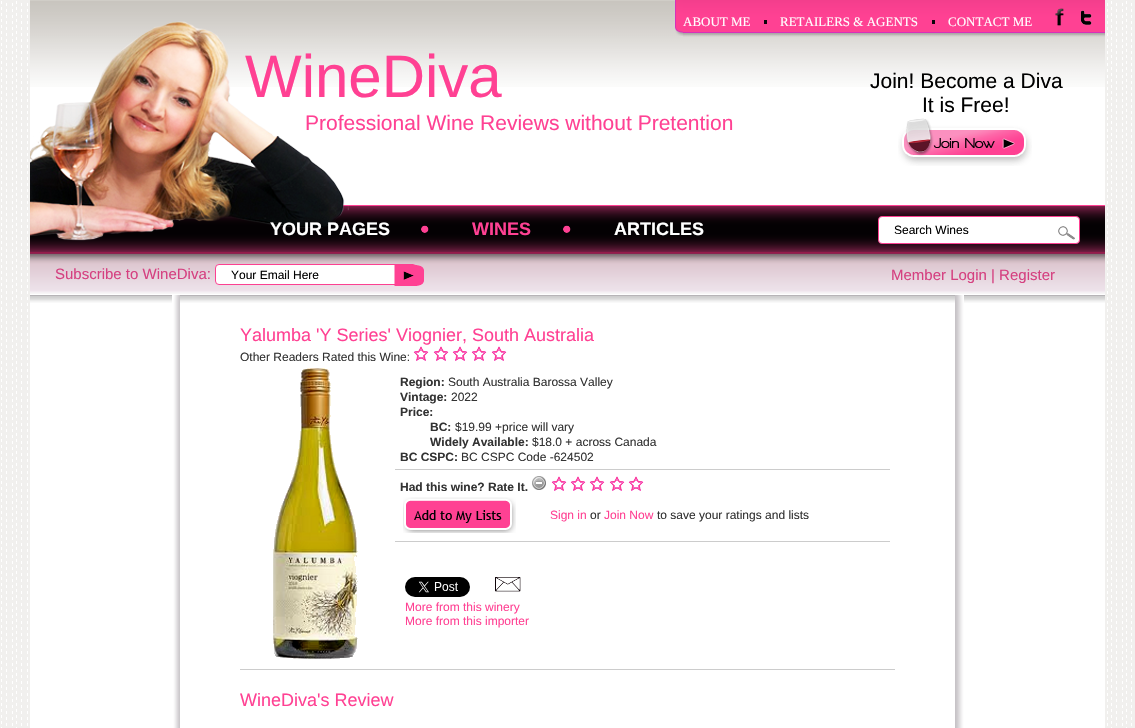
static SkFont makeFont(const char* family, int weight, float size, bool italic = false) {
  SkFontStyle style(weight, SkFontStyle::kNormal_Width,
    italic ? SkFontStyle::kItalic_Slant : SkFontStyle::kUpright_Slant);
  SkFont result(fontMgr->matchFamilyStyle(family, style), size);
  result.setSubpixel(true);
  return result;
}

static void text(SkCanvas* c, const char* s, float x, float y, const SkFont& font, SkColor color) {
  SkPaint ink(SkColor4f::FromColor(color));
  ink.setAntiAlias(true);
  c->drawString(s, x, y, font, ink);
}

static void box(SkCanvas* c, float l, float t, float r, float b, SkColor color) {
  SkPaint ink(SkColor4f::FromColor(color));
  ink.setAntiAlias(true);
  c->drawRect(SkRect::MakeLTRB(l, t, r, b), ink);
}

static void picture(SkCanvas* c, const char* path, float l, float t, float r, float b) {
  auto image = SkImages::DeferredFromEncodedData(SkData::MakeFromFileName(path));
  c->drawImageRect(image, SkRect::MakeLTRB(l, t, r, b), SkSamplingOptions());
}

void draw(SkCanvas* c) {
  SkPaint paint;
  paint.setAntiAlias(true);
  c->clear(0xffffffff);
  picture(c, "img_01.png", 0, 0, 1135, 728);
  box(c, 30, 87, 1105, 728, 0xffffffff);
  picture(c, "img_02.png", 30, 0, 1105, 87);
  picture(c, "img_03.png", 675, 0, 683, 36);
  picture(c, "img_04.png", 683, 0, 1105, 37);
  SkFont face1 = makeFont("Liberation Serif", 400, 13);
  text(c, "ABOUT ME", 683, 26, face1, 0xffffffff);
  box(c, 764, 20, 767, 24, 0xff0c030a);
  text(c, "RETAILERS & AGENTS", 780, 26, face1, 0xffffffff);
  box(c, 932, 20, 935, 24, 0xff0c030a);
  text(c, "CONTACT ME", 948, 26, face1, 0xffffffff);
  picture(c, "img_05.png", 1055, 8, 1064, 26);
  picture(c, "img_06.png", 1080, 10, 1092, 26);
  SkFont face2 = makeFont("Liberation Sans", 400, 60);
  text(c, "WineDiva", 245, 97, face2, 0xffff4193);
  SkFont face3 = makeFont("Liberation Sans", 400, 21);
  text(c, "Professional Wine Reviews without Pretention", 305, 130, face3, 0xffff4193);
  text(c, "Join! Become a Diva", 870, 88, face3, 0xff000000);
  text(c, "It is Free!", 922, 112, face3, 0xff000000);
  picture(c, "img_07.png", 898, 118, 1032, 166);
  picture(c, "img_08.png", 30, 205, 1105, 254);
  picture(c, "img_13.png", 30, 21, 349, 241);
  SkFont face4 = makeFont("Liberation Sans", 700, 18);
  text(c, "YOUR PAGES", 270, 235, face4, 0xffffffff);
  picture(c, "img_09.png", 421, 225, 429, 233);
  text(c, "WINES", 472, 235, face4, 0xffff4193);
  picture(c, "img_09.png", 563, 225, 571, 233);
  text(c, "ARTICLES", 614, 235, face4, 0xffffffff);
  paint.setColor(0xffffffff);
  c->drawRoundRect(SkRect::MakeLTRB(878.5f, 216.5f, 1079.5f, 243.5f), 3.5f, 3.5f, paint);
  paint.setStyle(SkPaint::kStroke_Style);
  paint.setStrokeWidth(1);
  paint.setColor(0xfffc4091);
  c->drawRoundRect(SkRect::MakeLTRB(878.5f, 216.5f, 1079.5f, 243.5f), 3.5f, 3.5f, paint);
  SkFont face5 = makeFont("Liberation Sans", 400, 12);
  text(c, "Search Wines", 894, 234, face5, 0xff000000);
  picture(c, "img_10.png", 1058, 226, 1075, 240);
  picture(c, "img_11.png", 30, 254, 1105, 294);
  SkFont face6 = makeFont("Liberation Sans", 400, 15);
  text(c, "Subscribe to WineDiva:", 55, 279, face6, 0xffd54080);
  paint.setStyle(SkPaint::kFill_Style);
  paint.setColor(0xffffffff);
  c->drawRoundRect(SkRect::MakeLTRB(215.5f, 264.5f, 416.5f, 284.5f), 3.5f, 3.5f, paint);
  paint.setStyle(SkPaint::kStroke_Style);
  paint.setColor(0xfffc4091);
  c->drawRoundRect(SkRect::MakeLTRB(215.5f, 264.5f, 416.5f, 284.5f), 3.5f, 3.5f, paint);
  text(c, "Your Email Here", 231, 279, face5, 0xff000000);
  picture(c, "img_12.png", 394, 265, 424, 286);
  text(c, "Member Login | Register", 891, 280, face6, 0xffd54080);
  picture(c, "img_14.png", 30, 295, 1105, 303);
  picture(c, "img_15.png", 172, 295, 180, 728);
  box(c, 240, 669, 895, 670, 0xffcccccc);
  SkFont face7 = makeFont("Liberation Sans", 400, 18);
  text(c, "Yalumba 'Y Series' Viognier, South Australia", 240, 341, face7, 0xffff4193);
  text(c, "Other Readers Rated this Wine:", 240, 361, face5, 0xff333333);
  picture(c, "img_16.png", 413, 346, 429, 361);
  picture(c, "img_16.png", 433, 346, 449, 361);
  picture(c, "img_16.png", 452, 346, 468, 361);
  picture(c, "img_16.png", 471, 346, 487, 361);
  picture(c, "img_16.png", 491, 346, 507, 361);
  picture(c, "img_17.png", 273, 368, 358, 659);
  box(c, 395, 469, 890, 470, 0xffcccccc);
  SkFont face8 = makeFont("Liberation Sans", 700, 12);
  text(c, "Region:", 400, 386, face8, 0xff333333);
  text(c, "South Australia Barossa Valley", 448, 386, face5, 0xff333333);
  text(c, "Vintage:", 400, 401, face8, 0xff333333);
  text(c, "2022", 451, 401, face5, 0xff333333);
  text(c, "Price:", 400, 416, face8, 0xff333333);
  text(c, "BC:", 430, 431, face8, 0xff333333);
  text(c, "$19.99 +price will vary", 455, 431, face5, 0xff333333);
  text(c, "Widely Available:", 430, 446, face8, 0xff333333);
  text(c, "$18.0 + across Canada", 532, 446, face5, 0xff333333);
  text(c, "BC CSPC:", 400, 461, face8, 0xff333333);
  text(c, "BC CSPC Code -624502", 461, 461, face5, 0xff333333);
  box(c, 395, 541, 890, 542, 0xffcccccc);
  text(c, "Had this wine? Rate It.", 400, 491, face8, 0xff333333);
  picture(c, "img_18.png", 532, 476, 546, 490);
  picture(c, "img_16.png", 551, 476, 567, 491);
  picture(c, "img_16.png", 570, 476, 586, 491);
  picture(c, "img_16.png", 589, 476, 605, 491);
  picture(c, "img_16.png", 609, 476, 625, 491);
  picture(c, "img_16.png", 628, 476, 644, 491);
  picture(c, "img_19.png", 403, 497, 516, 533);
  text(c, "Sign in", 550, 519, face5, 0xffff4193);
  text(c, "or", 590, 519, face5, 0xff333333);
  text(c, "Join Now", 604, 519, face5, 0xffff4193);
  text(c, "to save your ratings and lists", 657, 519, face5, 0xff333333);
  picture(c, "img_20.png", 405, 577, 470, 597);
  picture(c, "img_21.png", 495, 577, 521, 592);
  text(c, "More from this winery", 405, 611, face5, 0xffff4193);
  text(c, "More from this importer", 405, 625, face5, 0xffff4193);
  text(c, "WineDiva's Review", 240, 706, face7, 0xffff4193);
  picture(c, "img_22.png", 955, 295, 964, 728);
}
